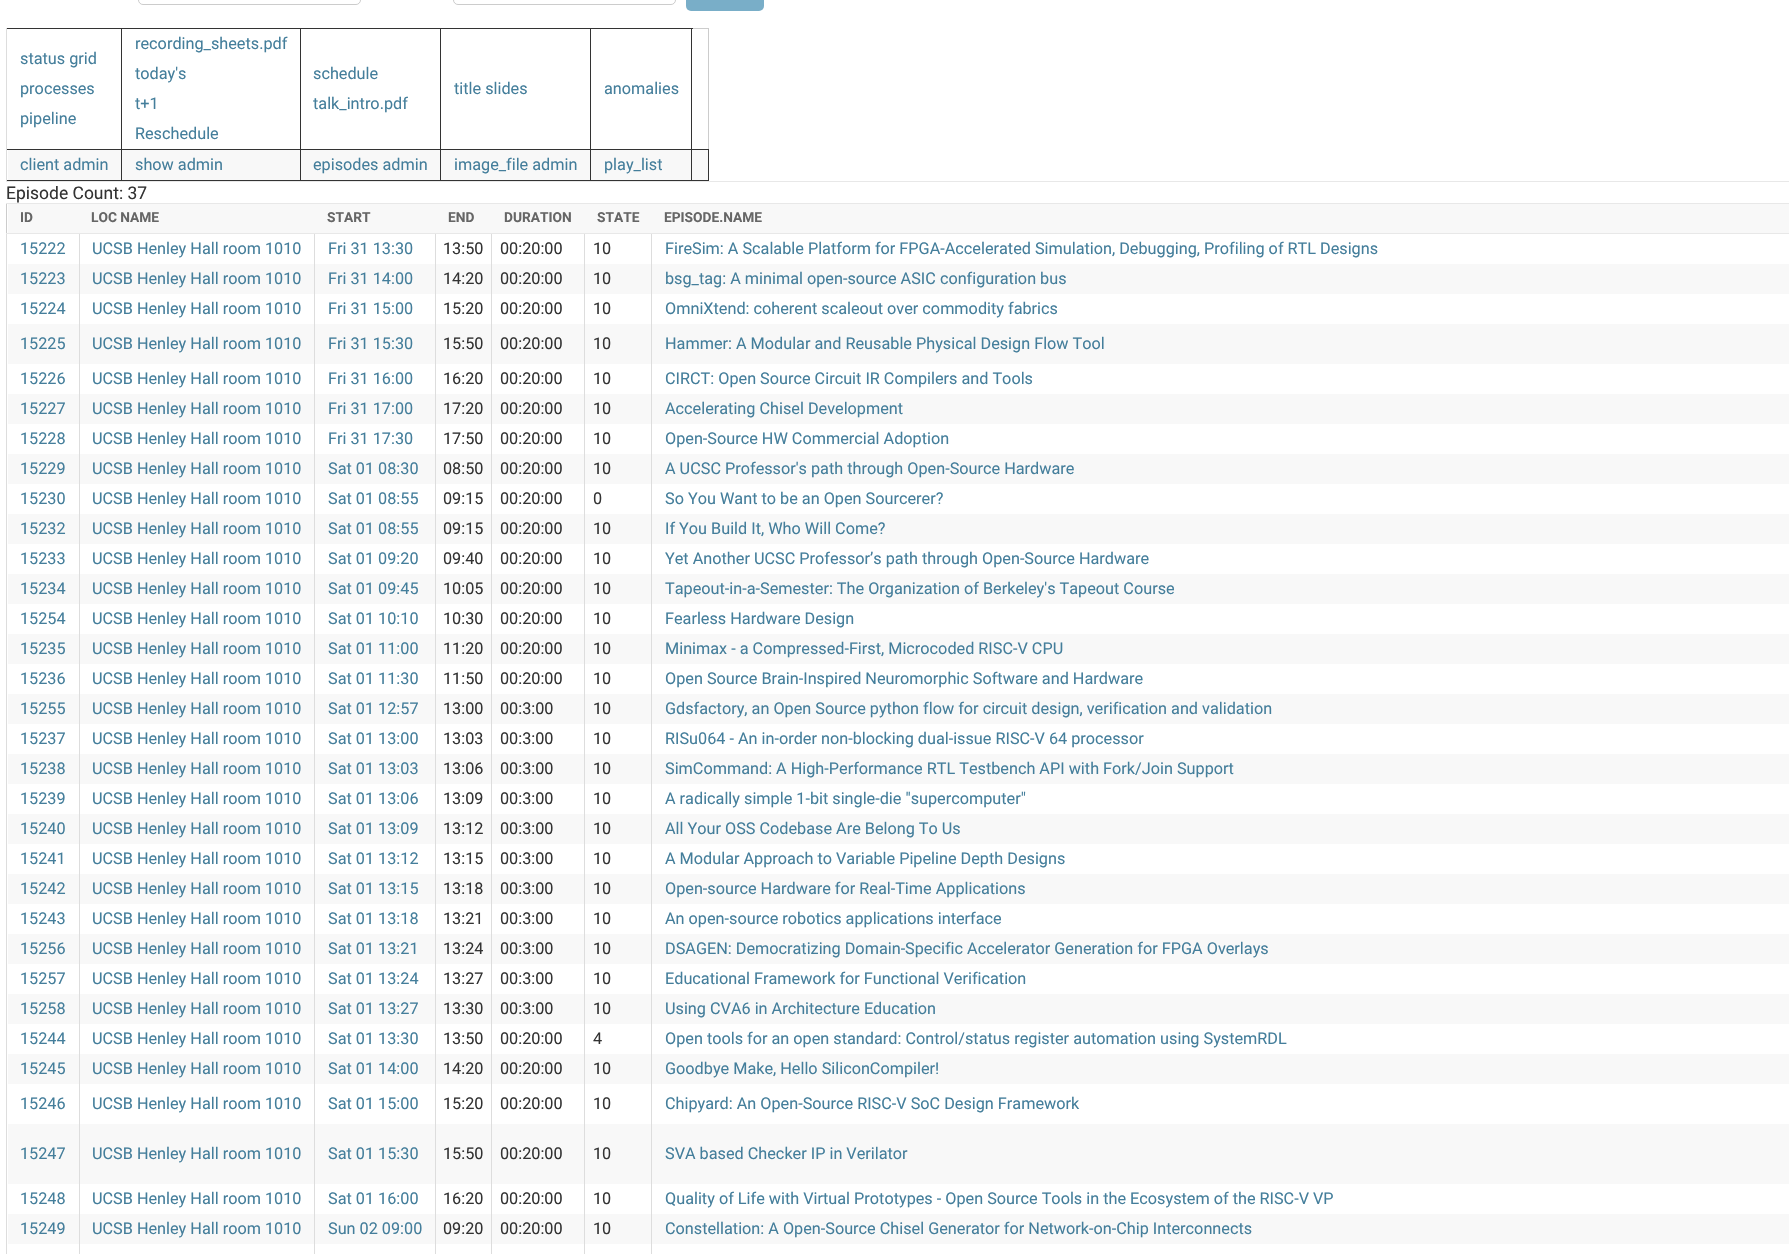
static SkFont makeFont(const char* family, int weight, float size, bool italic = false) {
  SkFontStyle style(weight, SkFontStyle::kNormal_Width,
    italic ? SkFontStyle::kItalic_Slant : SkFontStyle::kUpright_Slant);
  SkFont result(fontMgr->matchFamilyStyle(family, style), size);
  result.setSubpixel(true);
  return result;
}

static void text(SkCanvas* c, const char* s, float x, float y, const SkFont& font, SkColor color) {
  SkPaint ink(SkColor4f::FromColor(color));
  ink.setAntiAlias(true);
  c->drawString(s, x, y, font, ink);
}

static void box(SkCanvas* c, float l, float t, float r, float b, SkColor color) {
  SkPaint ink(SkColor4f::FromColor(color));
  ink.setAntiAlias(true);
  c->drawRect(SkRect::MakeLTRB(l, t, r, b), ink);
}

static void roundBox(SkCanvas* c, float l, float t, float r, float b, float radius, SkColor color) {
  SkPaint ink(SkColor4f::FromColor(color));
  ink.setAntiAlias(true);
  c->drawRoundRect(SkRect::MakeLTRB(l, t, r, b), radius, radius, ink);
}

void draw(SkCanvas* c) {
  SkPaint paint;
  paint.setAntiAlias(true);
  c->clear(0xffffffff);
  paint.setStyle(SkPaint::kStroke_Style);
  paint.setStrokeWidth(1);
  paint.setColor(0xffcccccc);
  c->drawRoundRect(SkRect::MakeLTRB(138.5f, -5.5f, 360.5f, 4.5f), 4.5f, 4.5f, paint);
  c->drawRoundRect(SkRect::MakeLTRB(453.5f, -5.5f, 675.5f, 4.5f), 4.5f, 4.5f, paint);
  roundBox(c, 686, -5, 764, 11, 5, 0xff79aec8);
  box(c, 693, 28, 709, 29, 0xffcccccc);
  box(c, 708, 28, 709, 149, 0xffcccccc);
  box(c, 6, 28, 693, 29, 0xff333333);
  box(c, 8, 150, 708, 180, 0xfff8f8f8);
  box(c, 121, 149, 709, 150, 0xff333333);
  box(c, 708, 149, 709, 181, 0xff333333);
  box(c, 691, 180, 709, 181, 0xff333333);
  box(c, 691, 149, 692, 181, 0xff333333);
  box(c, 590, 180, 693, 181, 0xff333333);
  box(c, 590, 149, 591, 181, 0xff333333);
  box(c, 440, 180, 591, 181, 0xff333333);
  box(c, 440, 149, 441, 181, 0xff333333);
  box(c, 300, 180, 441, 181, 0xff333333);
  box(c, 300, 149, 301, 181, 0xff333333);
  box(c, 121, 180, 301, 181, 0xff333333);
  box(c, 121, 149, 122, 181, 0xff333333);
  box(c, 121, 28, 122, 150, 0xff333333);
  box(c, 6, 180, 123, 181, 0xff333333);
  box(c, 6, 149, 7, 181, 0xffdddddd);
  box(c, 6, 149, 123, 150, 0xff333333);
  box(c, 6, 28, 7, 150, 0xffdddddd);
  SkFont face1 = makeFont("Roboto", 400, 16.25f);
  text(c, "status grid", 20, 64, face1, 0xff447e9b);
  text(c, "processes", 20, 94, face1, 0xff447e9b);
  text(c, "pipeline", 20, 124, face1, 0xff447e9b);
  box(c, 300, 28, 301, 150, 0xff333333);
  text(c, "recording_sheets.pdf", 135, 49, face1, 0xff447e9b);
  text(c, "today's", 135, 79, face1, 0xff447e9b);
  text(c, "t+1", 135, 109, face1, 0xff447e9b);
  text(c, "Reschedule", 135, 139, face1, 0xff447e9b);
  box(c, 440, 28, 441, 150, 0xff333333);
  text(c, "schedule", 313, 79, face1, 0xff447e9b);
  text(c, "talk_intro.pdf", 313, 109, face1, 0xff447e9b);
  box(c, 590, 28, 591, 150, 0xff333333);
  text(c, "title slides", 454, 94, face1, 0xff447e9b);
  box(c, 691, 28, 692, 150, 0xff333333);
  text(c, "anomalies", 604, 94, face1, 0xff447e9b);
  text(c, "client admin", 20, 170, face1, 0xff447e9b);
  text(c, "show admin", 135, 170, face1, 0xff447e9b);
  text(c, "episodes admin", 313, 170, face1, 0xff447e9b);
  text(c, "image_file admin", 454, 170, face1, 0xff447e9b);
  text(c, "play_list", 604, 170, face1, 0xff447e9b);
  box(c, 6, 181, 1789, 182, 0xffe8e8e8);
  SkFont face2 = makeFont("Roboto", 400, 17.5f);
  text(c, "Episode Count: 37", 6, 199, face2, 0xff333333);
  box(c, 6, 203, 7, 233, 0xffcccccc);
  box(c, 8, 204, 1789, 233, 0xfff8f8f8);
  SkFont face3 = makeFont("Roboto", 700, 13.75f);
  text(c, "ID", 20, 222, face3, 0xff666666);
  text(c, "LOC NAME", 91, 222, face3, 0xff666666);
  text(c, "START", 327, 222, face3, 0xff666666);
  text(c, "END", 448, 222, face3, 0xff666666);
  text(c, "DURATION", 504, 222, face3, 0xff666666);
  text(c, "STATE", 597, 222, face3, 0xff666666);
  box(c, 6, 203, 1789, 204, 0xffe8e8e8);
  box(c, 6, 233, 7, 1254, 0xffdddddd);
  box(c, 8, 264, 1789, 294, 0xfff8f8f8);
  box(c, 8, 324, 1789, 364, 0xfff8f8f8);
  box(c, 8, 394, 1789, 424, 0xfff8f8f8);
  box(c, 8, 454, 1789, 484, 0xfff8f8f8);
  box(c, 8, 514, 1789, 544, 0xfff8f8f8);
  box(c, 8, 574, 1789, 604, 0xfff8f8f8);
  box(c, 8, 634, 1789, 664, 0xfff8f8f8);
  box(c, 8, 694, 1789, 724, 0xfff8f8f8);
  box(c, 8, 754, 1789, 784, 0xfff8f8f8);
  box(c, 8, 814, 1789, 844, 0xfff8f8f8);
  box(c, 8, 874, 1789, 904, 0xfff8f8f8);
  box(c, 8, 934, 1789, 964, 0xfff8f8f8);
  box(c, 8, 994, 1789, 1024, 0xfff8f8f8);
  box(c, 8, 1054, 1789, 1084, 0xfff8f8f8);
  box(c, 8, 1124, 1789, 1184, 0xfff8f8f8);
  box(c, 8, 1214, 1789, 1244, 0xfff8f8f8);
  box(c, 79, 233, 80, 1254, 0xffdddddd);
  box(c, 314, 233, 315, 1254, 0xffdddddd);
  box(c, 435, 233, 436, 1254, 0xffdddddd);
  box(c, 491, 233, 492, 1254, 0xffdddddd);
  box(c, 584, 233, 585, 1254, 0xffdddddd);
  box(c, 651, 233, 652, 1254, 0xffdddddd);
  box(c, 6, 233, 1789, 234, 0xffe8e8e8);
  text(c, "EPISODE.NAME", 664, 222, face3, 0xff666666);
  text(c, "15222", 20, 254, face1, 0xff447e9b);
  text(c, "UCSB Henley Hall room 1010", 92, 254, face1, 0xff447e9b);
  text(c, "Fri 31 13:30", 328, 254, face1, 0xff447e9b);
  text(c, "13:50", 443, 254, face1, 0xff333333);
  text(c, "00:20:00", 500, 254, face1, 0xff333333);
  text(c, "10", 593, 254, face1, 0xff333333);
  text(c, "FireSim: A Scalable Platform for FPGA-Accelerated Simulation, Debugging, Profiling of RTL Designs", 665, 254, face1, 0xff447e9b);
  text(c, "15223", 20, 284, face1, 0xff447e9b);
  text(c, "UCSB Henley Hall room 1010", 92, 284, face1, 0xff447e9b);
  text(c, "Fri 31 14:00", 328, 284, face1, 0xff447e9b);
  text(c, "14:20", 443, 284, face1, 0xff333333);
  text(c, "00:20:00", 500, 284, face1, 0xff333333);
  text(c, "10", 593, 284, face1, 0xff333333);
  text(c, "bsg_tag: A minimal open-source ASIC configuration bus", 665, 284, face1, 0xff447e9b);
  text(c, "15224", 20, 314, face1, 0xff447e9b);
  text(c, "UCSB Henley Hall room 1010", 92, 314, face1, 0xff447e9b);
  text(c, "Fri 31 15:00", 328, 314, face1, 0xff447e9b);
  text(c, "15:20", 443, 314, face1, 0xff333333);
  text(c, "00:20:00", 500, 314, face1, 0xff333333);
  text(c, "10", 593, 314, face1, 0xff333333);
  text(c, "OmniXtend: coherent scaleout over commodity fabrics", 665, 314, face1, 0xff447e9b);
  text(c, "15225", 20, 349, face1, 0xff447e9b);
  text(c, "UCSB Henley Hall room 1010", 92, 349, face1, 0xff447e9b);
  text(c, "Fri 31 15:30", 328, 349, face1, 0xff447e9b);
  text(c, "15:50", 443, 349, face1, 0xff333333);
  text(c, "00:20:00", 500, 349, face1, 0xff333333);
  text(c, "10", 593, 349, face1, 0xff333333);
  text(c, "Hammer: A Modular and Reusable Physical Design Flow Tool", 665, 349, face1, 0xff447e9b);
  text(c, "15226", 20, 384, face1, 0xff447e9b);
  text(c, "UCSB Henley Hall room 1010", 92, 384, face1, 0xff447e9b);
  text(c, "Fri 31 16:00", 328, 384, face1, 0xff447e9b);
  text(c, "16:20", 443, 384, face1, 0xff333333);
  text(c, "00:20:00", 500, 384, face1, 0xff333333);
  text(c, "10", 593, 384, face1, 0xff333333);
  text(c, "CIRCT: Open Source Circuit IR Compilers and Tools", 665, 384, face1, 0xff447e9b);
  text(c, "15227", 20, 414, face1, 0xff447e9b);
  text(c, "UCSB Henley Hall room 1010", 92, 414, face1, 0xff447e9b);
  text(c, "Fri 31 17:00", 328, 414, face1, 0xff447e9b);
  text(c, "17:20", 443, 414, face1, 0xff333333);
  text(c, "00:20:00", 500, 414, face1, 0xff333333);
  text(c, "10", 593, 414, face1, 0xff333333);
  text(c, "Accelerating Chisel Development", 665, 414, face1, 0xff447e9b);
  text(c, "15228", 20, 444, face1, 0xff447e9b);
  text(c, "UCSB Henley Hall room 1010", 92, 444, face1, 0xff447e9b);
  text(c, "Fri 31 17:30", 328, 444, face1, 0xff447e9b);
  text(c, "17:50", 443, 444, face1, 0xff333333);
  text(c, "00:20:00", 500, 444, face1, 0xff333333);
  text(c, "10", 593, 444, face1, 0xff333333);
  text(c, "Open-Source HW Commercial Adoption", 665, 444, face1, 0xff447e9b);
  text(c, "15229", 20, 474, face1, 0xff447e9b);
  text(c, "UCSB Henley Hall room 1010", 92, 474, face1, 0xff447e9b);
  text(c, "Sat 01 08:30", 328, 474, face1, 0xff447e9b);
  text(c, "08:50", 443, 474, face1, 0xff333333);
  text(c, "00:20:00", 500, 474, face1, 0xff333333);
  text(c, "10", 593, 474, face1, 0xff333333);
  text(c, "A UCSC Professor's path through Open-Source Hardware", 665, 474, face1, 0xff447e9b);
  text(c, "15230", 20, 504, face1, 0xff447e9b);
  text(c, "UCSB Henley Hall room 1010", 92, 504, face1, 0xff447e9b);
  text(c, "Sat 01 08:55", 328, 504, face1, 0xff447e9b);
  text(c, "09:15", 443, 504, face1, 0xff333333);
  text(c, "00:20:00", 500, 504, face1, 0xff333333);
  text(c, "0", 593, 504, face1, 0xff333333);
  text(c, "So You Want to be an Open Sourcerer?", 665, 504, face1, 0xff447e9b);
  text(c, "15232", 20, 534, face1, 0xff447e9b);
  text(c, "UCSB Henley Hall room 1010", 92, 534, face1, 0xff447e9b);
  text(c, "Sat 01 08:55", 328, 534, face1, 0xff447e9b);
  text(c, "09:15", 443, 534, face1, 0xff333333);
  text(c, "00:20:00", 500, 534, face1, 0xff333333);
  text(c, "10", 593, 534, face1, 0xff333333);
  text(c, "If You Build It, Who Will Come?", 665, 534, face1, 0xff447e9b);
  text(c, "15233", 20, 564, face1, 0xff447e9b);
  text(c, "UCSB Henley Hall room 1010", 92, 564, face1, 0xff447e9b);
  text(c, "Sat 01 09:20", 328, 564, face1, 0xff447e9b);
  text(c, "09:40", 443, 564, face1, 0xff333333);
  text(c, "00:20:00", 500, 564, face1, 0xff333333);
  text(c, "10", 593, 564, face1, 0xff333333);
  text(c, "Yet Another UCSC Professor’s path through Open-Source Hardware", 665, 564, face1, 0xff447e9b);
  text(c, "15234", 20, 594, face1, 0xff447e9b);
  text(c, "UCSB Henley Hall room 1010", 92, 594, face1, 0xff447e9b);
  text(c, "Sat 01 09:45", 328, 594, face1, 0xff447e9b);
  text(c, "10:05", 443, 594, face1, 0xff333333);
  text(c, "00:20:00", 500, 594, face1, 0xff333333);
  text(c, "10", 593, 594, face1, 0xff333333);
  text(c, "Tapeout-in-a-Semester: The Organization of Berkeley's Tapeout Course", 665, 594, face1, 0xff447e9b);
  text(c, "15254", 20, 624, face1, 0xff447e9b);
  text(c, "UCSB Henley Hall room 1010", 92, 624, face1, 0xff447e9b);
  text(c, "Sat 01 10:10", 328, 624, face1, 0xff447e9b);
  text(c, "10:30", 443, 624, face1, 0xff333333);
  text(c, "00:20:00", 500, 624, face1, 0xff333333);
  text(c, "10", 593, 624, face1, 0xff333333);
  text(c, "Fearless Hardware Design", 665, 624, face1, 0xff447e9b);
  text(c, "15235", 20, 654, face1, 0xff447e9b);
  text(c, "UCSB Henley Hall room 1010", 92, 654, face1, 0xff447e9b);
  text(c, "Sat 01 11:00", 328, 654, face1, 0xff447e9b);
  text(c, "11:20", 443, 654, face1, 0xff333333);
  text(c, "00:20:00", 500, 654, face1, 0xff333333);
  text(c, "10", 593, 654, face1, 0xff333333);
  text(c, "Minimax - a Compressed-First, Microcoded RISC-V CPU", 665, 654, face1, 0xff447e9b);
  text(c, "15236", 20, 684, face1, 0xff447e9b);
  text(c, "UCSB Henley Hall room 1010", 92, 684, face1, 0xff447e9b);
  text(c, "Sat 01 11:30", 328, 684, face1, 0xff447e9b);
  text(c, "11:50", 443, 684, face1, 0xff333333);
  text(c, "00:20:00", 500, 684, face1, 0xff333333);
  text(c, "10", 593, 684, face1, 0xff333333);
  text(c, "Open Source Brain-Inspired Neuromorphic Software and Hardware", 665, 684, face1, 0xff447e9b);
  text(c, "15255", 20, 714, face1, 0xff447e9b);
  text(c, "UCSB Henley Hall room 1010", 92, 714, face1, 0xff447e9b);
  text(c, "Sat 01 12:57", 328, 714, face1, 0xff447e9b);
  text(c, "13:00", 443, 714, face1, 0xff333333);
  text(c, "00:3:00", 500, 714, face1, 0xff333333);
  text(c, "10", 593, 714, face1, 0xff333333);
  text(c, "Gdsfactory, an Open Source python flow for circuit design, verification and validation", 665, 714, face1, 0xff447e9b);
  text(c, "15237", 20, 744, face1, 0xff447e9b);
  text(c, "UCSB Henley Hall room 1010", 92, 744, face1, 0xff447e9b);
  text(c, "Sat 01 13:00", 328, 744, face1, 0xff447e9b);
  text(c, "13:03", 443, 744, face1, 0xff333333);
  text(c, "00:3:00", 500, 744, face1, 0xff333333);
  text(c, "10", 593, 744, face1, 0xff333333);
  text(c, "RISu064 - An in-order non-blocking dual-issue RISC-V 64 processor", 665, 744, face1, 0xff447e9b);
  text(c, "15238", 20, 774, face1, 0xff447e9b);
  text(c, "UCSB Henley Hall room 1010", 92, 774, face1, 0xff447e9b);
  text(c, "Sat 01 13:03", 328, 774, face1, 0xff447e9b);
  text(c, "13:06", 443, 774, face1, 0xff333333);
  text(c, "00:3:00", 500, 774, face1, 0xff333333);
  text(c, "10", 593, 774, face1, 0xff333333);
  text(c, "SimCommand: A High-Performance RTL Testbench API with Fork/Join Support", 665, 774, face1, 0xff447e9b);
  text(c, "15239", 20, 804, face1, 0xff447e9b);
  text(c, "UCSB Henley Hall room 1010", 92, 804, face1, 0xff447e9b);
  text(c, "Sat 01 13:06", 328, 804, face1, 0xff447e9b);
  text(c, "13:09", 443, 804, face1, 0xff333333);
  text(c, "00:3:00", 500, 804, face1, 0xff333333);
  text(c, "10", 593, 804, face1, 0xff333333);
  text(c, "A radically simple 1-bit single-die \"supercomputer\"", 665, 804, face1, 0xff447e9b);
  text(c, "15240", 20, 834, face1, 0xff447e9b);
  text(c, "UCSB Henley Hall room 1010", 92, 834, face1, 0xff447e9b);
  text(c, "Sat 01 13:09", 328, 834, face1, 0xff447e9b);
  text(c, "13:12", 443, 834, face1, 0xff333333);
  text(c, "00:3:00", 500, 834, face1, 0xff333333);
  text(c, "10", 593, 834, face1, 0xff333333);
  text(c, "All Your OSS Codebase Are Belong To Us", 665, 834, face1, 0xff447e9b);
  text(c, "15241", 20, 864, face1, 0xff447e9b);
  text(c, "UCSB Henley Hall room 1010", 92, 864, face1, 0xff447e9b);
  text(c, "Sat 01 13:12", 328, 864, face1, 0xff447e9b);
  text(c, "13:15", 443, 864, face1, 0xff333333);
  text(c, "00:3:00", 500, 864, face1, 0xff333333);
  text(c, "10", 593, 864, face1, 0xff333333);
  text(c, "A Modular Approach to Variable Pipeline Depth Designs", 665, 864, face1, 0xff447e9b);
  text(c, "15242", 20, 894, face1, 0xff447e9b);
  text(c, "UCSB Henley Hall room 1010", 92, 894, face1, 0xff447e9b);
  text(c, "Sat 01 13:15", 328, 894, face1, 0xff447e9b);
  text(c, "13:18", 443, 894, face1, 0xff333333);
  text(c, "00:3:00", 500, 894, face1, 0xff333333);
  text(c, "10", 593, 894, face1, 0xff333333);
  text(c, "Open-source Hardware for Real-Time Applications", 665, 894, face1, 0xff447e9b);
  text(c, "15243", 20, 924, face1, 0xff447e9b);
  text(c, "UCSB Henley Hall room 1010", 92, 924, face1, 0xff447e9b);
  text(c, "Sat 01 13:18", 328, 924, face1, 0xff447e9b);
  text(c, "13:21", 443, 924, face1, 0xff333333);
  text(c, "00:3:00", 500, 924, face1, 0xff333333);
  text(c, "10", 593, 924, face1, 0xff333333);
  text(c, "An open-source robotics applications interface", 665, 924, face1, 0xff447e9b);
  text(c, "15256", 20, 954, face1, 0xff447e9b);
  text(c, "UCSB Henley Hall room 1010", 92, 954, face1, 0xff447e9b);
  text(c, "Sat 01 13:21", 328, 954, face1, 0xff447e9b);
  text(c, "13:24", 443, 954, face1, 0xff333333);
  text(c, "00:3:00", 500, 954, face1, 0xff333333);
  text(c, "10", 593, 954, face1, 0xff333333);
  text(c, "DSAGEN: Democratizing Domain-Specific Accelerator Generation for FPGA Overlays", 665, 954, face1, 0xff447e9b);
  text(c, "15257", 20, 984, face1, 0xff447e9b);
  text(c, "UCSB Henley Hall room 1010", 92, 984, face1, 0xff447e9b);
  text(c, "Sat 01 13:24", 328, 984, face1, 0xff447e9b);
  text(c, "13:27", 443, 984, face1, 0xff333333);
  text(c, "00:3:00", 500, 984, face1, 0xff333333);
  text(c, "10", 593, 984, face1, 0xff333333);
  text(c, "Educational Framework for Functional Verification", 665, 984, face1, 0xff447e9b);
  text(c, "15258", 20, 1014, face1, 0xff447e9b);
  text(c, "UCSB Henley Hall room 1010", 92, 1014, face1, 0xff447e9b);
  text(c, "Sat 01 13:27", 328, 1014, face1, 0xff447e9b);
  text(c, "13:30", 443, 1014, face1, 0xff333333);
  text(c, "00:3:00", 500, 1014, face1, 0xff333333);
  text(c, "10", 593, 1014, face1, 0xff333333);
  text(c, "Using CVA6 in Architecture Education", 665, 1014, face1, 0xff447e9b);
  text(c, "15244", 20, 1044, face1, 0xff447e9b);
  text(c, "UCSB Henley Hall room 1010", 92, 1044, face1, 0xff447e9b);
  text(c, "Sat 01 13:30", 328, 1044, face1, 0xff447e9b);
  text(c, "13:50", 443, 1044, face1, 0xff333333);
  text(c, "00:20:00", 500, 1044, face1, 0xff333333);
  text(c, "4", 593, 1044, face1, 0xff333333);
  text(c, "Open tools for an open standard: Control/status register automation using SystemRDL", 665, 1044, face1, 0xff447e9b);
  text(c, "15245", 20, 1074, face1, 0xff447e9b);
  text(c, "UCSB Henley Hall room 1010", 92, 1074, face1, 0xff447e9b);
  text(c, "Sat 01 14:00", 328, 1074, face1, 0xff447e9b);
  text(c, "14:20", 443, 1074, face1, 0xff333333);
  text(c, "00:20:00", 500, 1074, face1, 0xff333333);
  text(c, "10", 593, 1074, face1, 0xff333333);
  text(c, "Goodbye Make, Hello SiliconCompiler!", 665, 1074, face1, 0xff447e9b);
  text(c, "15246", 20, 1109, face1, 0xff447e9b);
  text(c, "UCSB Henley Hall room 1010", 92, 1109, face1, 0xff447e9b);
  text(c, "Sat 01 15:00", 328, 1109, face1, 0xff447e9b);
  text(c, "15:20", 443, 1109, face1, 0xff333333);
  text(c, "00:20:00", 500, 1109, face1, 0xff333333);
  text(c, "10", 593, 1109, face1, 0xff333333);
  text(c, "Chipyard: An Open-Source RISC-V SoC Design Framework", 665, 1109, face1, 0xff447e9b);
  text(c, "15247", 20, 1159, face1, 0xff447e9b);
  text(c, "UCSB Henley Hall room 1010", 92, 1159, face1, 0xff447e9b);
  text(c, "Sat 01 15:30", 328, 1159, face1, 0xff447e9b);
  text(c, "15:50", 443, 1159, face1, 0xff333333);
  text(c, "00:20:00", 500, 1159, face1, 0xff333333);
  text(c, "10", 593, 1159, face1, 0xff333333);
  text(c, "SVA based Checker IP in Verilator", 665, 1159, face1, 0xff447e9b);
  text(c, "15248", 20, 1204, face1, 0xff447e9b);
  text(c, "UCSB Henley Hall room 1010", 92, 1204, face1, 0xff447e9b);
  text(c, "Sat 01 16:00", 328, 1204, face1, 0xff447e9b);
  text(c, "16:20", 443, 1204, face1, 0xff333333);
  text(c, "00:20:00", 500, 1204, face1, 0xff333333);
  text(c, "10", 593, 1204, face1, 0xff333333);
  text(c, "Quality of Life with Virtual Prototypes - Open Source Tools in the Ecosystem of the RISC-V VP", 665, 1204, face1, 0xff447e9b);
  text(c, "15249", 20, 1234, face1, 0xff447e9b);
  text(c, "UCSB Henley Hall room 1010", 92, 1234, face1, 0xff447e9b);
  text(c, "Sun 02 09:00", 328, 1234, face1, 0xff447e9b);
  text(c, "09:20", 443, 1234, face1, 0xff333333);
  text(c, "00:20:00", 500, 1234, face1, 0xff333333);
  text(c, "10", 593, 1234, face1, 0xff333333);
  text(c, "Constellation: A Open-Source Chisel Generator for Network-on-Chip Interconnects", 665, 1234, face1, 0xff447e9b);
}
